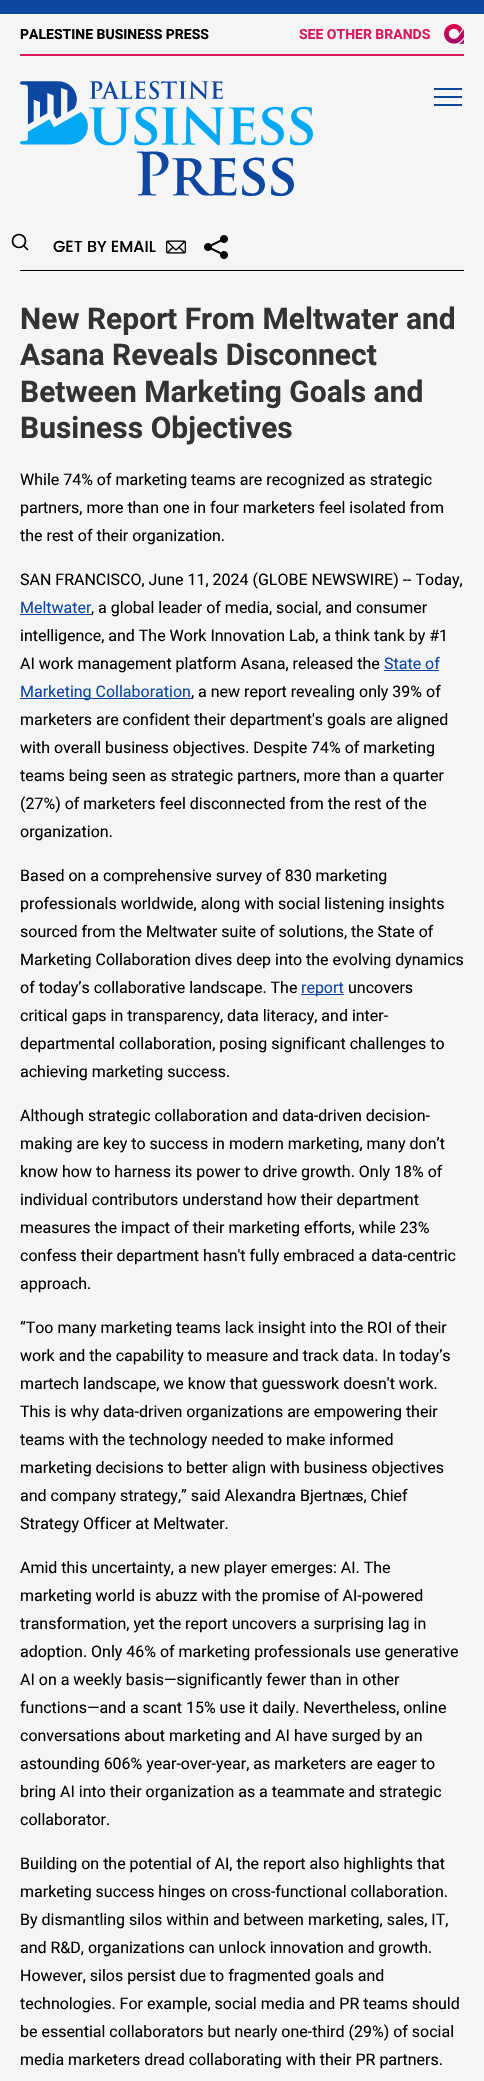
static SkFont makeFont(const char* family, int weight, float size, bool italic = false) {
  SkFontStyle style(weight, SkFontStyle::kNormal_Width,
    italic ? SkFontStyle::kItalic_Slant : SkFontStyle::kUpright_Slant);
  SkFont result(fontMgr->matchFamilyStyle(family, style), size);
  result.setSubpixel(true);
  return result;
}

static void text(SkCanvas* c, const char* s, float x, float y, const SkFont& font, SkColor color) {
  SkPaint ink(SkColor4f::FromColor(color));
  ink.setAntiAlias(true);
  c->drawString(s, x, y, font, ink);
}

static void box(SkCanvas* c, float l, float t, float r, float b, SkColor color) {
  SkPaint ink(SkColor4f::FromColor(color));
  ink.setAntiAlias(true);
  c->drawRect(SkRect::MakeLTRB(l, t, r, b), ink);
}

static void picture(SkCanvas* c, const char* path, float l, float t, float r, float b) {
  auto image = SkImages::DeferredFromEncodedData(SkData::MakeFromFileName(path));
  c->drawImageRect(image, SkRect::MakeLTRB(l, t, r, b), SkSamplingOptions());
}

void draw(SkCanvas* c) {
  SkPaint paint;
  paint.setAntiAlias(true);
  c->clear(0xfff5f5f5);
  box(c, 0, 0, 484, 14, 0xff0d47a1);
  box(c, 20, 54, 464, 56, 0xffd8195e);
  SkFont face1 = makeFont("Roboto", 700, 14);
  text(c, "PALESTINE BUSINESS PRESS", 20, 39, face1, 0xff000000);
  text(c, "SEE OTHER BRANDS", 299, 39, face1, 0xffd8195e);
  picture(c, "img_01.png", 444, 24, 464, 44);
  box(c, 20, 270, 464, 271, 0xff000000);
  picture(c, "img_02.png", 20, 81, 313, 196);
  box(c, 434, 88, 462, 90, 0xff0d47a1);
  box(c, 434, 96, 462, 98, 0xff0d47a1);
  box(c, 434, 104, 462, 106, 0xff0d47a1);
  paint.setStyle(SkPaint::kStroke_Style);
  paint.setStrokeWidth(1.7f);
  paint.setColor(0xff000000);
  c->drawCircle(19, 241, 6.5f, paint);
  paint.setStrokeCap(SkPaint::kRound_Cap);
  paint.setStrokeJoin(SkPaint::kRound_Join);
  c->drawPath(SkPathBuilder().moveTo(27.5f, 249.5f).lineTo(24, 246).detach(), paint);
  SkFont face2 = makeFont("Poppins", 500, 16);
  text(c, "GET BY EMAIL", 53, 252, face2, 0xff000000);
  picture(c, "img_03.png", 166, 240, 186, 254);
  picture(c, "img_04.png", 204, 235, 228, 259);
  SkFont face3 = makeFont("Roboto", 700, 30);
  text(c, "New Report From Meltwater and", 20, 329, face3, 0xff333333);
  text(c, "Asana Reveals Disconnect", 20, 365, face3, 0xff333333);
  text(c, "Between Marketing Goals and", 20, 402, face3, 0xff333333);
  text(c, "Business Objectives", 20, 438, face3, 0xff333333);
  SkFont face4 = makeFont("Roboto", 400, 16);
  text(c, "While 74% of marketing teams are recognized as strategic", 20, 485, face4, 0xff000000);
  text(c, "partners, more than one in four marketers feel isolated from", 20, 513, face4, 0xff000000);
  text(c, "the rest of their organization.", 20, 541, face4, 0xff000000);
  text(c, "SAN FRANCISCO, June 11, 2024 (GLOBE NEWSWIRE) -- Today,", 20, 585, face4, 0xff000000);
  text(c, "Meltwater", 20, 613, face4, 0xff0d47a1);
  box(c, 20, 614, 91, 615, 0xff0d47a1);
  text(c, ", a global leader of media, social, and consumer", 91, 613, face4, 0xff000000);
  text(c, "intelligence, and The Work Innovation Lab, a think tank by #1", 20, 641, face4, 0xff000000);
  text(c, "AI work management platform Asana, released the", 20, 669, face4, 0xff000000);
  text(c, "State of", 384, 669, face4, 0xff0d47a1);
  box(c, 384, 670, 439, 671, 0xff0d47a1);
  box(c, 20, 698, 191, 699, 0xff0d47a1);
  text(c, "Marketing Collaboration", 20, 697, face4, 0xff0d47a1);
  text(c, ", a new report revealing only 39% of", 191, 697, face4, 0xff000000);
  text(c, "marketers are confident their department's goals are aligned", 20, 725, face4, 0xff000000);
  text(c, "with overall business objectives. Despite 74% of marketing", 20, 753, face4, 0xff000000);
  text(c, "teams being seen as strategic partners, more than a quarter", 20, 781, face4, 0xff000000);
  text(c, "(27%) of marketers feel disconnected from the rest of the", 20, 809, face4, 0xff000000);
  text(c, "organization.", 20, 837, face4, 0xff000000);
  text(c, "Based on a comprehensive survey of 830 marketing", 20, 881, face4, 0xff000000);
  text(c, "professionals worldwide, along with social listening insights", 20, 909, face4, 0xff000000);
  text(c, "sourced from the Meltwater suite of solutions, the State of", 20, 937, face4, 0xff000000);
  text(c, "Marketing Collaboration dives deep into the evolving dynamics", 20, 965, face4, 0xff000000);
  text(c, "of today’s collaborative landscape. The", 20, 993, face4, 0xff000000);
  box(c, 301, 994, 344, 995, 0xff0d47a1);
  text(c, "report", 301, 993, face4, 0xff0d47a1);
  text(c, "uncovers", 348, 993, face4, 0xff000000);
  text(c, "critical gaps in transparency, data literacy, and inter-", 20, 1021, face4, 0xff000000);
  text(c, "departmental collaboration, posing significant challenges to", 20, 1049, face4, 0xff000000);
  text(c, "achieving marketing success.", 20, 1077, face4, 0xff000000);
  text(c, "Although strategic collaboration and data-driven decision-", 20, 1121, face4, 0xff000000);
  text(c, "making are key to success in modern marketing, many don’t", 20, 1149, face4, 0xff000000);
  text(c, "know how to harness its power to drive growth. Only 18% of", 20, 1177, face4, 0xff000000);
  text(c, "individual contributors understand how their department", 20, 1205, face4, 0xff000000);
  text(c, "measures the impact of their marketing efforts, while 23%", 20, 1233, face4, 0xff000000);
  text(c, "confess their department hasn't fully embraced a data-centric", 20, 1261, face4, 0xff000000);
  text(c, "approach.", 20, 1289, face4, 0xff000000);
  text(c, "“Too many marketing teams lack insight into the ROI of their", 20, 1333, face4, 0xff000000);
  text(c, "work and the capability to measure and track data. In today’s", 20, 1361, face4, 0xff000000);
  text(c, "martech landscape, we know that guesswork doesn't work.", 20, 1389, face4, 0xff000000);
  text(c, "This is why data-driven organizations are empowering their", 20, 1417, face4, 0xff000000);
  text(c, "teams with the technology needed to make informed", 20, 1445, face4, 0xff000000);
  text(c, "marketing decisions to better align with business objectives", 20, 1473, face4, 0xff000000);
  text(c, "and company strategy,” said Alexandra Bjertnæs, Chief", 20, 1501, face4, 0xff000000);
  text(c, "Strategy Officer at Meltwater.", 20, 1529, face4, 0xff000000);
  text(c, "Amid this uncertainty, a new player emerges: AI. The", 20, 1573, face4, 0xff000000);
  text(c, "marketing world is abuzz with the promise of AI-powered", 20, 1601, face4, 0xff000000);
  text(c, "transformation, yet the report uncovers a surprising lag in", 20, 1629, face4, 0xff000000);
  text(c, "adoption. Only 46% of marketing professionals use generative", 20, 1657, face4, 0xff000000);
  text(c, "AI on a weekly basis—significantly fewer than in other", 20, 1685, face4, 0xff000000);
  text(c, "functions—and a scant 15% use it daily. Nevertheless, online", 20, 1713, face4, 0xff000000);
  text(c, "conversations about marketing and AI have surged by an", 20, 1741, face4, 0xff000000);
  text(c, "astounding 606% year-over-year, as marketers are eager to", 20, 1769, face4, 0xff000000);
  text(c, "bring AI into their organization as a teammate and strategic", 20, 1797, face4, 0xff000000);
  text(c, "collaborator.", 20, 1825, face4, 0xff000000);
  text(c, "Building on the potential of AI, the report also highlights that", 20, 1869, face4, 0xff000000);
  text(c, "marketing success hinges on cross-functional collaboration.", 20, 1897, face4, 0xff000000);
  text(c, "By dismantling silos within and between marketing, sales, IT,", 20, 1925, face4, 0xff000000);
  text(c, "and R&D, organizations can unlock innovation and growth.", 20, 1953, face4, 0xff000000);
  text(c, "However, silos persist due to fragmented goals and", 20, 1981, face4, 0xff000000);
  text(c, "technologies. For example, social media and PR teams should", 20, 2009, face4, 0xff000000);
  text(c, "be essential collaborators but nearly one-third (29%) of social", 20, 2037, face4, 0xff000000);
  text(c, "media marketers dread collaborating with their PR partners.", 20, 2065, face4, 0xff000000);
}
